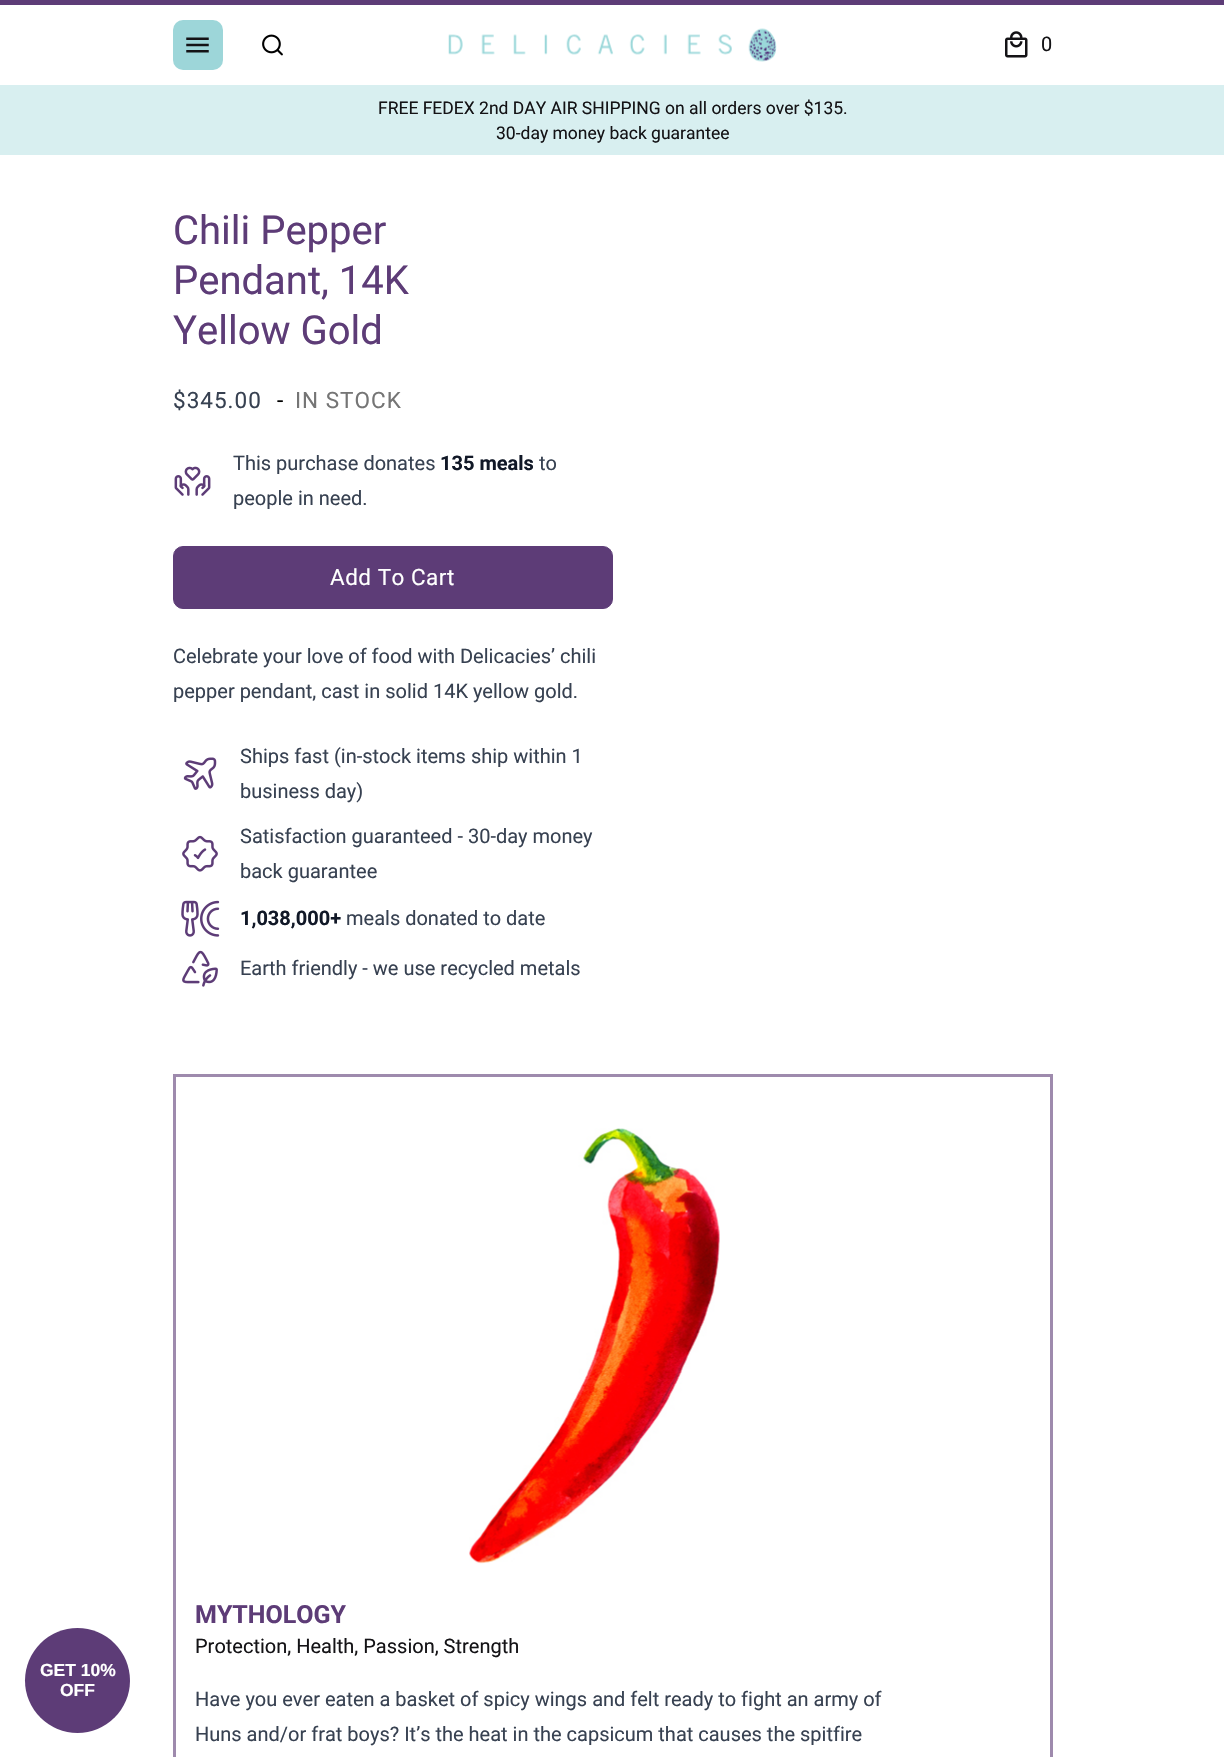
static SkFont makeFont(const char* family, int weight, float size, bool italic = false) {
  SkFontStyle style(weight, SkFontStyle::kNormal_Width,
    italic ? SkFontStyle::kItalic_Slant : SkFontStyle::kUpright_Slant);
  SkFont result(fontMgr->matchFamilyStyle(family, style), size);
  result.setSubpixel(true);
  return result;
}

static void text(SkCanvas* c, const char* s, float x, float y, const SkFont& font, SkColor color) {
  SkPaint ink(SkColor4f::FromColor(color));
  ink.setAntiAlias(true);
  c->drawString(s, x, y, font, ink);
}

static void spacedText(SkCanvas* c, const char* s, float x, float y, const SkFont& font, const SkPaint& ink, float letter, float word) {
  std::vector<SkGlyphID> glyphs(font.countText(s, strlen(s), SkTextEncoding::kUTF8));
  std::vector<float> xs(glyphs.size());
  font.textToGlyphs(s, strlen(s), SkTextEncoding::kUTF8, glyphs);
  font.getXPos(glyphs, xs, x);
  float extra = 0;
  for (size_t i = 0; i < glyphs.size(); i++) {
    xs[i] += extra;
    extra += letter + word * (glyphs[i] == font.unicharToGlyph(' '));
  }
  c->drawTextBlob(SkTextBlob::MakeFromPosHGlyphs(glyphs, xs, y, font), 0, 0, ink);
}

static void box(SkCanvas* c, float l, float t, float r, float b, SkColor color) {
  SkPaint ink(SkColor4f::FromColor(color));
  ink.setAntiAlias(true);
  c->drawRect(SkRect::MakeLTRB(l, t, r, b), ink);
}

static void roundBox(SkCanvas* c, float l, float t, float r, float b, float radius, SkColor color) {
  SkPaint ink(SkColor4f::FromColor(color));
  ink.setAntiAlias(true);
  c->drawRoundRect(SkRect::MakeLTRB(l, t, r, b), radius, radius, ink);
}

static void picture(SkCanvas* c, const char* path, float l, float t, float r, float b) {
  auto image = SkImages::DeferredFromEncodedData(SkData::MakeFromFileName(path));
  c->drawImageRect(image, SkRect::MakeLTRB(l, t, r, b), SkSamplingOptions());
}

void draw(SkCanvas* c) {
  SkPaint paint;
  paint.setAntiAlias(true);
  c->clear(0xffffffff);
  paint.setColor(0xff5d3c77);
  c->drawCircle(77.5f, 1680.5f, 52.5f, paint);
  SkFont face1 = makeFont("Liberation Sans", 700, 17.5f);
  text(c, "GET 10%", 40, 1676, face1, 0xffffffff);
  text(c, "OFF", 60, 1696, face1, 0xffffffff);
  box(c, 0, 0, 1224, 5, 0xff5d3c77);
  roundBox(c, 173, 20, 223, 70, 10, 0xff9dd6d9);
  picture(c, "img_01.png", 186, 37, 209, 53);
  picture(c, "img_02.png", 262, 34, 283, 56);
  picture(c, "img_03.png", 448, 28, 777, 62);
  picture(c, "img_04.png", 1005, 31, 1028, 58);
  SkFont face2 = makeFont("Roboto", 400, 20);
  text(c, "0", 1041, 51, face2, 0xff141316);
  box(c, 0, 85, 1224, 155, 0xffd8eff0);
  SkFont face3 = makeFont("Roboto", 400, 17.5f);
  text(c, "FREE FEDEX 2nd DAY AIR SHIPPING on all orders over $135.", 378, 114, face3, 0xff141316);
  text(c, "30-day money back guarantee", 496, 139, face3, 0xff141316);
  SkFont face4 = makeFont("Roboto", 400, 40);
  text(c, "Chili Pepper", 173, 244, face4, 0xff5d3c77);
  text(c, "Pendant, 14K", 173, 294, face4, 0xff5d3c77);
  text(c, "Yellow Gold", 173, 344, face4, 0xff5d3c77);
  SkFont face5 = makeFont("Roboto", 400, 22.5f);
  paint.setColor(0xff374151);
  spacedText(c, "$345.00", 173, 408, face5, paint, 1, 0);
  paint.setColor(0xff000000);
  spacedText(c, "-", 277, 408, face5, paint, 1, 0);
  paint.setColor(0xff757575);
  spacedText(c, "IN STOCK", 295, 408, face5, paint, 1, 0);
  picture(c, "img_05.png", 174, 466, 211, 496);
  text(c, "This purchase donates", 233, 470, face2, 0xff374151);
  SkFont face6 = makeFont("Roboto", 700, 20);
  text(c, "135 meals", 440, 470, face6, 0xff111827);
  text(c, "to", 539, 470, face2, 0xff374151);
  text(c, "people in need.", 233, 505, face2, 0xff374151);
  paint.setColor(0xff5d3c77);
  c->drawRoundRect(SkRect::MakeLTRB(173.5f, 546.5f, 612.5f, 608.5f), 9.5f, 9.5f, paint);
  paint.setStyle(SkPaint::kStroke_Style);
  paint.setStrokeWidth(1);
  c->drawRoundRect(SkRect::MakeLTRB(173.5f, 546.5f, 612.5f, 608.5f), 9.5f, 9.5f, paint);
  paint.setStyle(SkPaint::kFill_Style);
  paint.setColor(0xffffffff);
  spacedText(c, "Add To Cart", 330, 585, face5, paint, 0.5f, 0);
  text(c, "Celebrate your love of food with Delicacies’ chili", 173, 663, face2, 0xff374151);
  text(c, "pepper pendant, cast in solid 14K yellow gold.", 173, 698, face2, 0xff374151);
  picture(c, "img_06.png", 183, 757, 217, 790);
  text(c, "Ships fast (in-stock items ship within 1", 240, 763, face2, 0xff374151);
  text(c, "business day)", 240, 798, face2, 0xff374151);
  picture(c, "img_07.png", 182, 835, 218, 872);
  text(c, "Satisfaction guaranteed - 30-day money", 240, 843, face2, 0xff374151);
  text(c, "back guarantee", 240, 878, face2, 0xff374151);
  picture(c, "img_08.png", 181, 900, 220, 937);
  text(c, "1,038,000+", 240, 925, face6, 0xff111827);
  text(c, "meals donated to date", 346, 925, face2, 0xff374151);
  picture(c, "img_09.png", 182, 950, 218, 987);
  text(c, "Earth friendly - we use recycled metals", 240, 975, face2, 0xff374151);
  paint.setStyle(SkPaint::kStroke_Style);
  paint.setStrokeWidth(3);
  paint.setColor(0xff9e8aad);
  c->drawRect(SkRect::MakeLTRB(174.5f, 1075.5f, 1051.5f, 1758.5f), paint);
  picture(c, "img_10.png", 469, 1128, 720, 1564);
  SkFont face7 = makeFont("Roboto", 700, 25);
  text(c, "MYTHOLOGY", 195, 1623, face7, 0xff5d3c77);
  text(c, "Protection, Health, Passion, Strength", 195, 1653, face2, 0xff141316);
  text(c, "Have you ever eaten a basket of spicy wings and felt ready to fight an army of", 195, 1706, face2, 0xff374151);
  text(c, "Huns and/or frat boys? It’s the heat in the capsicum that causes the spitfire", 195, 1741, face2, 0xff374151);
}
